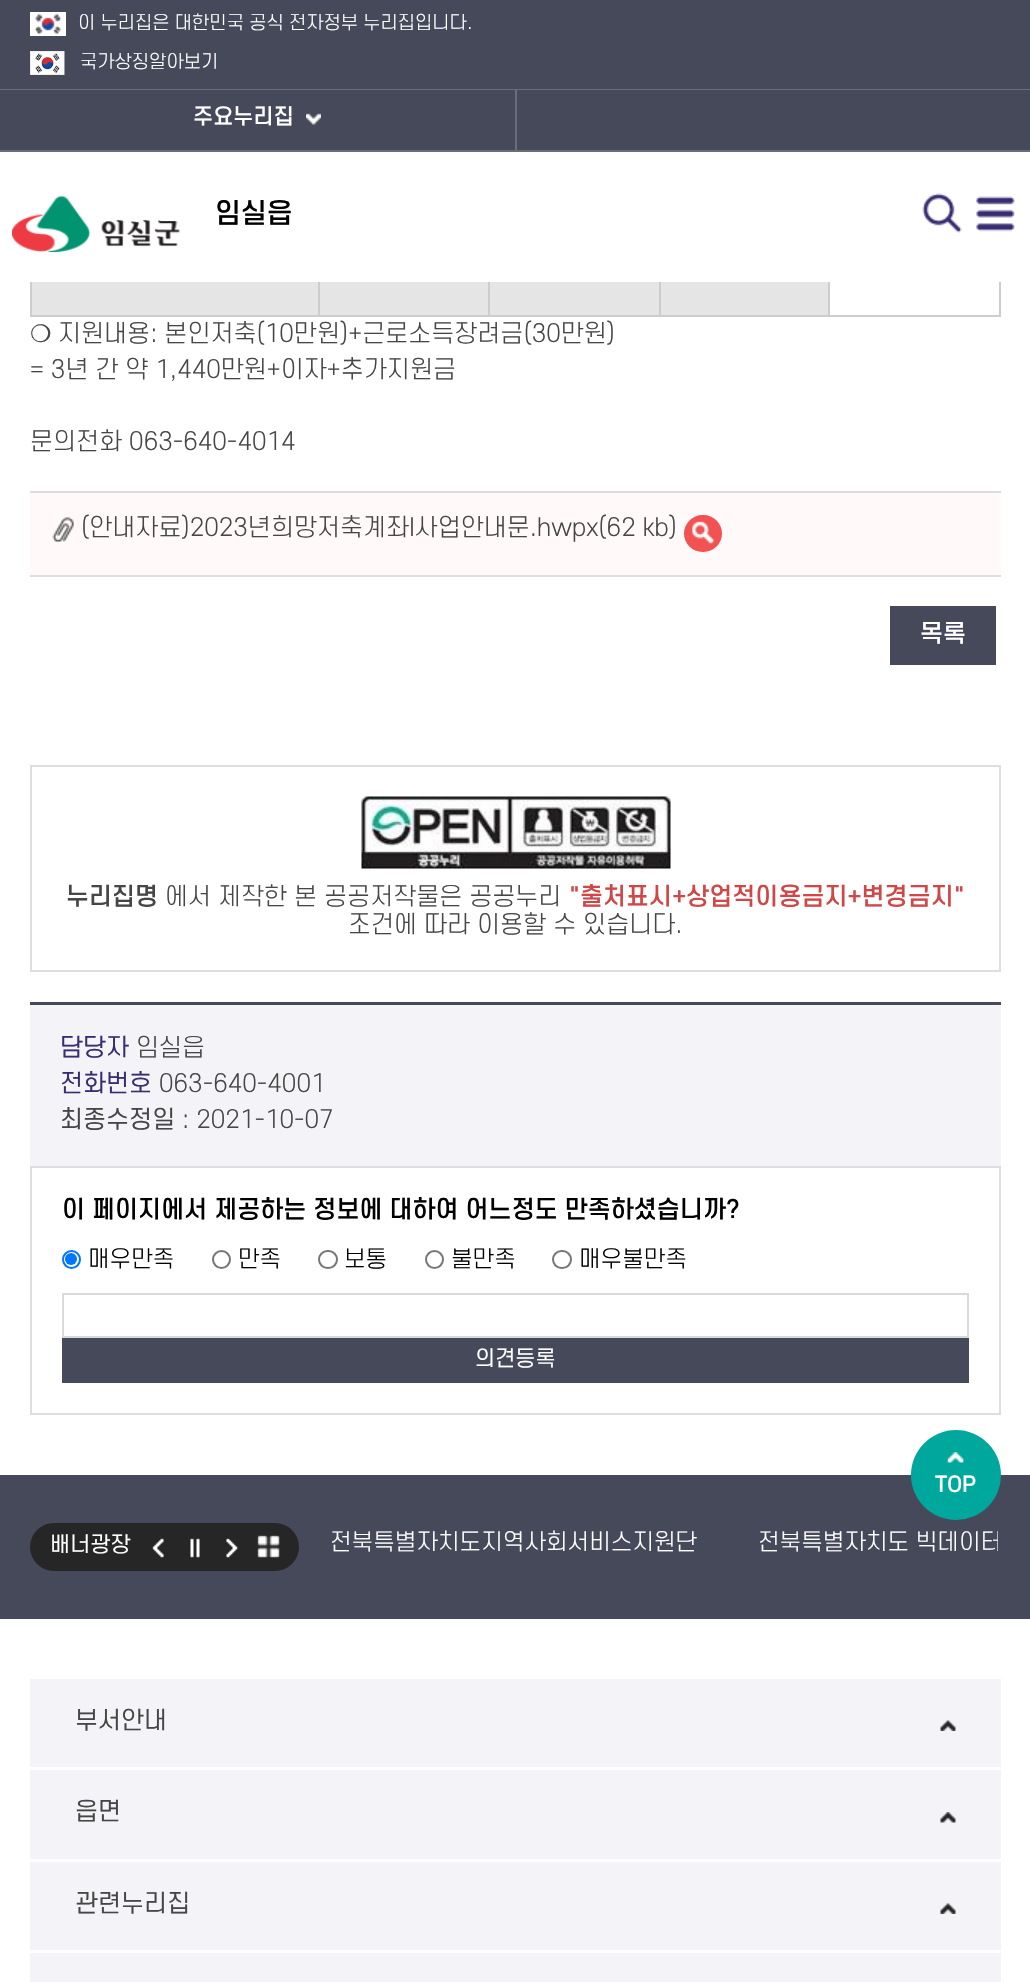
static SkFont makeFont(const char* family, int weight, float size, bool italic = false) {
  SkFontStyle style(weight, SkFontStyle::kNormal_Width,
    italic ? SkFontStyle::kItalic_Slant : SkFontStyle::kUpright_Slant);
  SkFont result(fontMgr->matchFamilyStyle(family, style), size);
  result.setSubpixel(true);
  return result;
}

static void text(SkCanvas* c, const char* s, float x, float y, const SkFont& font, SkColor color) {
  SkPaint ink(SkColor4f::FromColor(color));
  ink.setAntiAlias(true);
  c->drawString(s, x, y, font, ink);
}

static void box(SkCanvas* c, float l, float t, float r, float b, SkColor color) {
  SkPaint ink(SkColor4f::FromColor(color));
  ink.setAntiAlias(true);
  c->drawRect(SkRect::MakeLTRB(l, t, r, b), ink);
}

static void roundBox(SkCanvas* c, float l, float t, float r, float b, float radius, SkColor color) {
  SkPaint ink(SkColor4f::FromColor(color));
  ink.setAntiAlias(true);
  c->drawRoundRect(SkRect::MakeLTRB(l, t, r, b), radius, radius, ink);
}

static void picture(SkCanvas* c, const char* path, float l, float t, float r, float b) {
  auto image = SkImages::DeferredFromEncodedData(SkData::MakeFromFileName(path));
  c->drawImageRect(image, SkRect::MakeLTRB(l, t, r, b), SkSamplingOptions());
}

void draw(SkCanvas* c) {
  SkPaint paint;
  paint.setAntiAlias(true);
  c->clear(0xffffffff);
  box(c, 0, 0, 1030, 89, 0xff46495a);
  box(c, 0, 89, 1030, 90, 0xff6b6d7b);
  picture(c, "img_01.png", 30, 12, 66, 36);
  SkFont face1 = makeFont("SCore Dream", 300, 18);
  text(c, "이 누리집은 대한민국 공식 전자정부 누리집입니다.", 78, 29, face1, 0xffffffff);
  picture(c, "img_02.png", 30, 51, 65, 75);
  text(c, "국가상징알아보기", 80, 68, face1, 0xffffffff);
  box(c, 0, 90, 1030, 150, 0xff46495a);
  box(c, 0, 150, 1030, 152, 0xff6b6d7b);
  box(c, 515, 90, 517, 150, 0xff6b6d7b);
  SkFont face2 = makeFont("SCore Dream", 500, 21);
  text(c, "주요누리집", 193, 124, face2, 0xffffffff);
  picture(c, "img_03.png", 306, 113, 321, 125);
  picture(c, "img_04.png", 12, 196, 180, 253);
  SkFont face3 = makeFont("SCore Dream", 500, 27);
  text(c, "임실읍", 215, 223, face3, 0xff000000);
  picture(c, "img_05.png", 922, 193, 962, 233);
  picture(c, "img_06.png", 976, 196, 1015, 232);
  box(c, 30, 575, 1001, 577, 0xffdedede);
  box(c, 32, 282, 318, 315, 0xffe5e5e5);
  box(c, 999, 282, 1001, 317, 0xffcdcdcd);
  box(c, 828, 315, 1001, 317, 0xffcdcdcd);
  box(c, 828, 282, 830, 317, 0xffcdcdcd);
  box(c, 659, 315, 830, 317, 0xffcdcdcd);
  box(c, 659, 282, 661, 317, 0xffcdcdcd);
  box(c, 488, 315, 660, 317, 0xffcdcdcd);
  box(c, 488, 282, 490, 317, 0xffcdcdcd);
  box(c, 318, 315, 489, 317, 0xffcdcdcd);
  box(c, 318, 282, 320, 317, 0xffcdcdcd);
  box(c, 30, 315, 320, 317, 0xffcdcdcd);
  box(c, 30, 282, 32, 317, 0xffcdcdcd);
  box(c, 320, 282, 488, 315, 0xffe5e5e5);
  box(c, 490, 282, 659, 315, 0xffe5e5e5);
  box(c, 661, 282, 828, 315, 0xffe5e5e5);
  SkFont face4 = makeFont("DejaVu Sans", 400, 24);
  text(c, "❍", 30, 342, face4, 0xff464646);
  SkFont face5 = makeFont("SCore Dream", 300, 24);
  text(c, "지원내용: 본인저축(10만원)+근로소득장려금(30만원)", 58, 342, face5, 0xff464646);
  text(c, "= 3년 간 약 1,440만원+이자+추가지원금", 30, 378, face5, 0xff464646);
  text(c, "문의전화 063-640-4014", 30, 450, face5, 0xff464646);
  box(c, 30, 493, 1001, 575, 0xfffff9f9);
  box(c, 30, 491, 1001, 493, 0xffdedede);
  picture(c, "img_07.png", 52, 517, 74, 542);
  text(c, "(안내자료)2023년희망저축계좌I사업안내문.hwpx(62 kb)", 81, 536, face5, 0xff464646);
  roundBox(c, 684, 515, 722, 552, 18.5f, 0xfff25252);
  picture(c, "img_08.png", 692, 521, 714, 544);
  box(c, 890, 606, 996, 665, 0xff46495a);
  SkFont face6 = makeFont("SCore Dream", 500, 24);
  text(c, "목록", 920, 642, face6, 0xffffffff);
  paint.setStyle(SkPaint::kStroke_Style);
  paint.setStrokeWidth(2);
  paint.setColor(0xffdedede);
  c->drawRect(SkRect::MakeLTRB(31, 766, 1000, 971), paint);
  picture(c, "img_09.png", 361, 796, 671, 869);
  text(c, "누리집명", 66, 905, face6, 0xff464646);
  text(c, "에서 제작한 본 공공저작물은 공공누리", 165, 905, face5, 0xff464646);
  text(c, "\"출처표시+상업적이용금지+변경금지\"", 569, 905, face6, 0xffcf4747);
  text(c, "조건에 따라 이용할 수 있습니다.", 348, 933, face5, 0xff464646);
  box(c, 30, 1005, 1001, 1166, 0xfff4f4f8);
  box(c, 30, 1002, 1001, 1005, 0xff46495a);
  SkFont face7 = makeFont("SCore Dream", 400, 24);
  text(c, "담당자", 60, 1056, face7, 0xff382d70);
  text(c, "임실읍", 136, 1056, face5, 0xff464646);
  text(c, "전화번호", 60, 1092, face7, 0xff382d70);
  text(c, "063-640-4001", 159, 1092, face5, 0xff464646);
  text(c, "최종수정일", 60, 1128, face7, 0xff464646);
  text(c, ": 2021-10-07", 182, 1128, face5, 0xff464646);
  c->drawRect(SkRect::MakeLTRB(31, 1167, 1000, 1414), paint);
  text(c, "이 페이지에서 제공하는 정보에 대하여 어느정도 만족하셨습니까?", 62, 1218, face6, 0xff000000);
  paint.setColor(0xff0075ff);
  c->drawCircle(71.5f, 1259.5f, 8.5f, paint);
  paint.setStyle(SkPaint::kFill_Style);
  c->drawCircle(71, 1259, 6, paint);
  SkFont face8 = makeFont("SCore Dream", 300, 22.5f);
  text(c, "매우만족", 88, 1267, face8, 0xff000000);
  paint.setStyle(SkPaint::kStroke_Style);
  paint.setColor(0xff767676);
  c->drawCircle(221.5f, 1259.5f, 8.5f, paint);
  text(c, "만족", 238, 1267, face8, 0xff000000);
  c->drawRoundRect(SkRect::MakeLTRB(319, 1251, 337, 1268), 8.5f, 8.5f, paint);
  text(c, "보통", 344, 1267, face8, 0xff000000);
  c->drawCircle(434.5f, 1259.5f, 8.5f, paint);
  text(c, "불만족", 451, 1267, face8, 0xff000000);
  c->drawRoundRect(SkRect::MakeLTRB(553, 1251, 571, 1268), 8.5f, 8.5f, paint);
  text(c, "매우불만족", 579, 1267, face8, 0xff000000);
  paint.setColor(0xffd9d9d9);
  c->drawRect(SkRect::MakeLTRB(63, 1294, 968, 1337), paint);
  box(c, 62, 1338, 969, 1383, 0xff46495a);
  SkFont face9 = makeFont("SCore Dream", 400, 21);
  text(c, "의견등록", 475, 1366, face9, 0xffffffff);
  box(c, 0, 1475, 1030, 1619, 0xff46495a);
  paint.setStyle(SkPaint::kFill_Style);
  paint.setColor(0xff00a79c);
  c->drawCircle(956, 1475, 45, paint);
  picture(c, "img_10.png", 947, 1452, 964, 1463);
  text(c, "TOP", 935, 1492, face2, 0xffffffff);
  box(c, 30, 1679, 1001, 1767, 0xfff4f4f8);
  text(c, "부서안내", 75, 1729, face7, 0xff464646);
  picture(c, "img_11.png", 940, 1720, 956, 1731);
  box(c, 30, 1770, 1001, 1859, 0xfff4f4f8);
  text(c, "읍면", 75, 1820, face7, 0xff464646);
  picture(c, "img_12.png", 940, 1812, 956, 1823);
  box(c, 30, 1862, 1001, 1950, 0xfff4f4f8);
  text(c, "관련누리집", 75, 1912, face7, 0xff464646);
  picture(c, "img_11.png", 940, 1903, 956, 1914);
  box(c, 30, 1953, 1001, 1982, 0xfff4f4f8);
  roundBox(c, 30, 1523, 299, 1571, 24, 0xff262626);
  text(c, "배너광장", 50, 1552, face9, 0xffffffff);
  picture(c, "img_13.png", 152, 1538, 164, 1558);
  picture(c, "img_14.png", 190, 1538, 200, 1558);
  picture(c, "img_15.png", 226, 1538, 238, 1558);
  picture(c, "img_16.png", 257, 1535, 280, 1558);
  text(c, "전북특별자치도지역사회서비스지원단", 330, 1550, face8, 0xffffffff);
  c->save();
  c->clipRect(SkRect::MakeLTRB(330, 1530, 998, 1562));
  text(c, "전북특별자치도 빅데이터", 758, 1550, face8, 0xffffffff);
  c->restore();
}
